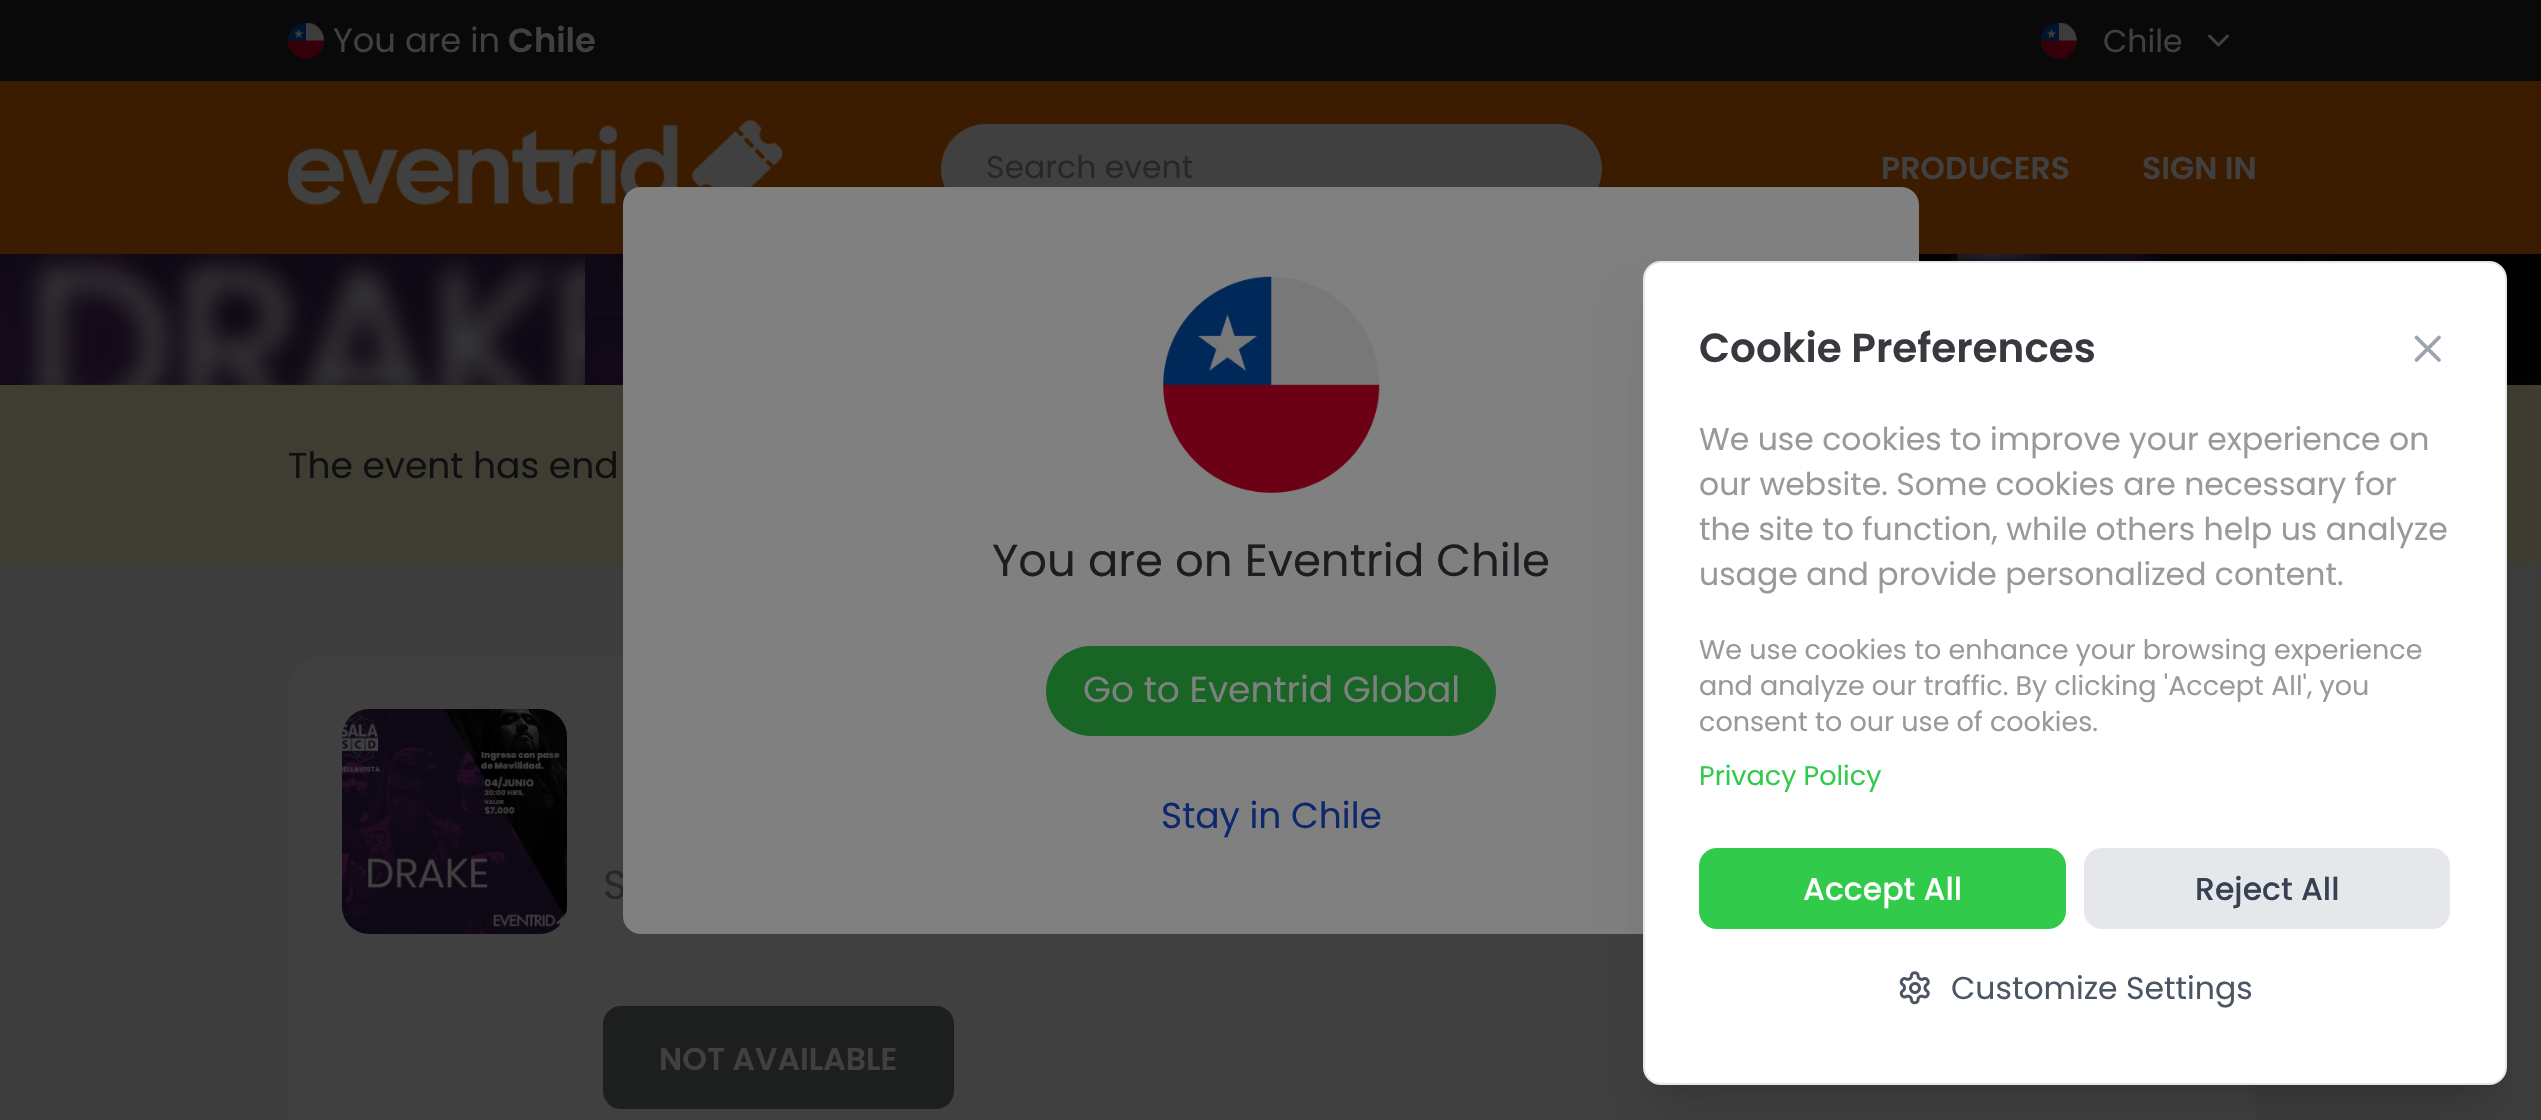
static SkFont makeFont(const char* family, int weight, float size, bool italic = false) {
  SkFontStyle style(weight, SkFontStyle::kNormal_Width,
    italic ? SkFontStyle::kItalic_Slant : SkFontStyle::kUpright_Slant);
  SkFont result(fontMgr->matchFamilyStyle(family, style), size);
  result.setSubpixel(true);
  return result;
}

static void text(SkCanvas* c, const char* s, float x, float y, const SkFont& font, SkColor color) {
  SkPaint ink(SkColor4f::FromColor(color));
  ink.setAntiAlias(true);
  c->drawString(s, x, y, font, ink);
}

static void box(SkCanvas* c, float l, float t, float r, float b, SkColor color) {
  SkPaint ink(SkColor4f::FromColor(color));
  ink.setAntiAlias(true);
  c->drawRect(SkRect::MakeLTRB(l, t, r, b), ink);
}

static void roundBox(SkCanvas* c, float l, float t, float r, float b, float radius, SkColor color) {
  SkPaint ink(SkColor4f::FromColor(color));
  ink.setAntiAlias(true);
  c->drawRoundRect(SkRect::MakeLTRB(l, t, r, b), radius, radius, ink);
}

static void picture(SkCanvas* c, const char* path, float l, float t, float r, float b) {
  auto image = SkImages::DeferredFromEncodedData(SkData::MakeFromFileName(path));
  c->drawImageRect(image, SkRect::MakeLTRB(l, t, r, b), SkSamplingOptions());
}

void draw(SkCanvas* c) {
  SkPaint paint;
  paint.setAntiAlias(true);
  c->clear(0xff3f3d32);
  c->save();
  c->clipRect(SkRect::MakeLTRB(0, 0, 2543, 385));
  paint.setColor(0xff202020);
  paint.setMaskFilter(SkMaskFilter::MakeBlur(kNormal_SkBlurStyle, 9));
  c->drawRect(SkRect::MakeLTRB(0, -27, 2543, 385), paint);
  paint.setMaskFilter(nullptr);
  paint.setMaskFilter(SkMaskFilter::MakeBlur(kNormal_SkBlurStyle, 9));
  c->drawRect(SkRect::MakeLTRB(-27, -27, 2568, 403), paint);
  paint.setMaskFilter(nullptr);
  c->restore();
  box(c, 0, 0, 2541, 81, 0xff090909);
  picture(c, "img_01.png", 288, 23, 324, 59);
  SkFont face1 = makeFont("Poppins", 400, 33.75f);
  text(c, "You are in", 333, 52, face1, 0xff404040);
  SkFont face2 = makeFont("Poppins", 600, 33.75f);
  text(c, "Chile", 508, 52, face2, 0xff404040);
  picture(c, "img_02.png", 2040, 23, 2077, 59);
  SkFont face3 = makeFont("Poppins", 400, 31.5f);
  text(c, "Chile", 2103, 52, face3, 0xff404040);
  paint.setStyle(SkPaint::kStroke_Style);
  paint.setStrokeWidth(3);
  paint.setStrokeCap(SkPaint::kRound_Cap);
  paint.setStrokeJoin(SkPaint::kRound_Join);
  paint.setColor(0xff404040);
  c->drawPath(SkPathBuilder().moveTo(2209.5f, 36).lineTo(2218.5f, 45).lineTo(2227.5f, 36).detach(), paint);
  box(c, 0, 81, 2541, 254, 0xff3c1c00);
  picture(c, "img_03.png", 287, 119, 783, 206);
  roundBox(c, 941, 124, 1602, 214, 45, 0xff404040);
  text(c, "Search event", 986, 178, face3, 0xff272727);
  SkFont face4 = makeFont("Poppins", 600, 31.5f);
  text(c, "PRODUCERS", 1881, 179, face4, 0xff404040);
  text(c, "SIGN IN", 2142, 179, face4, 0xff404040);
  picture(c, "img_04.png", 0, 254, 2541, 385);
  picture(c, "img_05.png", 585, 254, 1958, 385);
  SkFont face5 = makeFont("Poppins", 400, 36);
  text(c, "The event has end", 288, 478, face5, 0xff0e0f10);
  box(c, 0, 565, 2541, 1120, 0xff3d3d3d);
  roundBox(c, 288, 655, 2255, 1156, 36, 0xff404040);
  picture(c, "img_06.png", 342, 709, 567, 934);
  SkFont face6 = makeFont("Poppins", 400, 40.5f);
  text(c, "S", 603, 899, face6, 0xff272727);
  paint.setStyle(SkPaint::kFill_Style);
  paint.setColor(0xff1d1e1e);
  c->drawRoundRect(SkRect::MakeLTRB(604, 1007, 953, 1108), 17, 17, paint);
  paint.setStyle(SkPaint::kStroke_Style);
  paint.setStrokeWidth(2);
  paint.setStrokeCap(SkPaint::kButt_Cap);
  paint.setStrokeJoin(SkPaint::kMiter_Join);
  c->drawRoundRect(SkRect::MakeLTRB(604, 1007, 953, 1108), 17, 17, paint);
  text(c, "NOT AVAILABLE", 659, 1070, face4, 0xff404040);
  roundBox(c, 623, 187, 1919, 934, 18, 0xff808080);
  picture(c, "img_07.png", 1163, 276, 1380, 493);
  SkFont face7 = makeFont("Poppins", 400, 45);
  text(c, "You are on Eventrid Chile", 992, 576, face7, 0xff1c1d20);
  roundBox(c, 1046, 646, 1496, 736, 45, 0xff196526);
  text(c, "Go to Eventrid Global", 1083, 702, face5, 0xff808080);
  text(c, "Stay in Chile", 1161, 828, face5, 0xff0f276c);
  paint.setStyle(SkPaint::kFill_Style);
  paint.setColor(0x1a000000);
  paint.setMaskFilter(SkMaskFilter::MakeBlur(kNormal_SkBlurStyle, 11));
  c->drawRoundRect(SkRect::MakeLTRB(1656, 293, 2493, 1089), 5, 5, paint);
  paint.setMaskFilter(nullptr);
  paint.setMaskFilter(SkMaskFilter::MakeBlur(kNormal_SkBlurStyle, 28));
  c->drawRoundRect(SkRect::MakeLTRB(1654, 317, 2495, 1118), 7, 7, paint);
  paint.setMaskFilter(nullptr);
  paint.setColor(0xffffffff);
  c->drawRoundRect(SkRect::MakeLTRB(1644, 262, 2506, 1084), 17, 17, paint);
  paint.setStyle(SkPaint::kStroke_Style);
  paint.setColor(0xffe5e7eb);
  c->drawRoundRect(SkRect::MakeLTRB(1644, 262, 2506, 1084), 17, 17, paint);
  SkFont face8 = makeFont("Poppins", 600, 40.5f);
  text(c, "Cookie Preferences", 1699, 362, face8, 0xff37393f);
  paint.setStrokeWidth(3.8f);
  paint.setStrokeCap(SkPaint::kRound_Cap);
  paint.setStrokeJoin(SkPaint::kRound_Join);
  paint.setColor(0xff9ca3af);
  c->drawPath(SkPathBuilder().moveTo(2439, 337.5f).lineTo(2416.5f, 360).moveTo(2416.5f, 337.5f).lineTo(2439, 360).detach(), paint);
  text(c, "We use cookies to improve your experience on", 1699, 450, face3, 0xff999999);
  text(c, "our website. Some cookies are necessary for", 1699, 495, face3, 0xff999999);
  text(c, "the site to function, while others help us analyze", 1699, 540, face3, 0xff999999);
  text(c, "usage and provide personalized content.", 1699, 585, face3, 0xff999999);
  SkFont face9 = makeFont("Poppins", 400, 27);
  text(c, "We use cookies to enhance your browsing experience", 1699, 659, face9, 0xff999999);
  text(c, "and analyze our traffic. By clicking 'Accept All', you", 1699, 695, face9, 0xff999999);
  text(c, "consent to our use of cookies.", 1699, 731, face9, 0xff999999);
  text(c, "Privacy Policy", 1699, 785, face9, 0xff31ca4b);
  roundBox(c, 1699, 848, 2066, 929, 18, 0xff31ca4b);
  SkFont face10 = makeFont("Poppins", 500, 31.5f);
  text(c, "Accept All", 1803, 900, face10, 0xffffffff);
  roundBox(c, 2084, 848, 2450, 929, 18, 0xffe5e7eb);
  text(c, "Reject All", 2195, 900, face10, 0xff374151);
  picture(c, "img_08.png", 1899, 971, 1930, 1005);
  text(c, "Customize Settings", 1951, 999, face3, 0xff4b5563);
}
